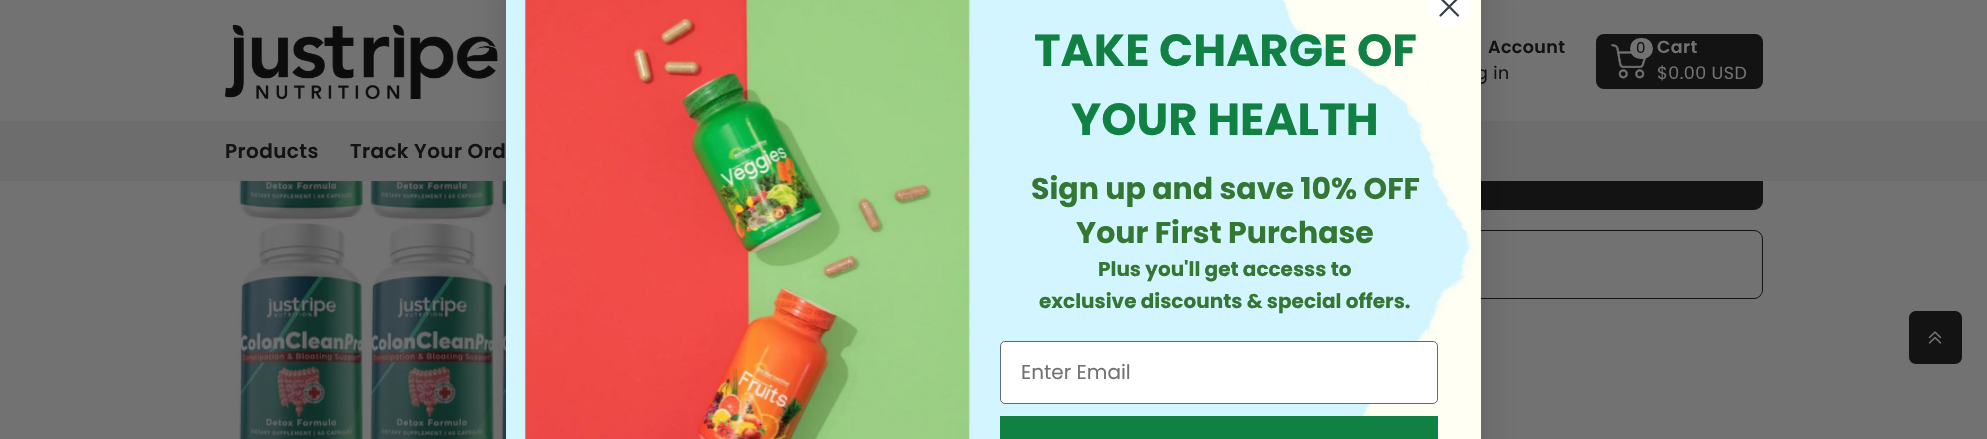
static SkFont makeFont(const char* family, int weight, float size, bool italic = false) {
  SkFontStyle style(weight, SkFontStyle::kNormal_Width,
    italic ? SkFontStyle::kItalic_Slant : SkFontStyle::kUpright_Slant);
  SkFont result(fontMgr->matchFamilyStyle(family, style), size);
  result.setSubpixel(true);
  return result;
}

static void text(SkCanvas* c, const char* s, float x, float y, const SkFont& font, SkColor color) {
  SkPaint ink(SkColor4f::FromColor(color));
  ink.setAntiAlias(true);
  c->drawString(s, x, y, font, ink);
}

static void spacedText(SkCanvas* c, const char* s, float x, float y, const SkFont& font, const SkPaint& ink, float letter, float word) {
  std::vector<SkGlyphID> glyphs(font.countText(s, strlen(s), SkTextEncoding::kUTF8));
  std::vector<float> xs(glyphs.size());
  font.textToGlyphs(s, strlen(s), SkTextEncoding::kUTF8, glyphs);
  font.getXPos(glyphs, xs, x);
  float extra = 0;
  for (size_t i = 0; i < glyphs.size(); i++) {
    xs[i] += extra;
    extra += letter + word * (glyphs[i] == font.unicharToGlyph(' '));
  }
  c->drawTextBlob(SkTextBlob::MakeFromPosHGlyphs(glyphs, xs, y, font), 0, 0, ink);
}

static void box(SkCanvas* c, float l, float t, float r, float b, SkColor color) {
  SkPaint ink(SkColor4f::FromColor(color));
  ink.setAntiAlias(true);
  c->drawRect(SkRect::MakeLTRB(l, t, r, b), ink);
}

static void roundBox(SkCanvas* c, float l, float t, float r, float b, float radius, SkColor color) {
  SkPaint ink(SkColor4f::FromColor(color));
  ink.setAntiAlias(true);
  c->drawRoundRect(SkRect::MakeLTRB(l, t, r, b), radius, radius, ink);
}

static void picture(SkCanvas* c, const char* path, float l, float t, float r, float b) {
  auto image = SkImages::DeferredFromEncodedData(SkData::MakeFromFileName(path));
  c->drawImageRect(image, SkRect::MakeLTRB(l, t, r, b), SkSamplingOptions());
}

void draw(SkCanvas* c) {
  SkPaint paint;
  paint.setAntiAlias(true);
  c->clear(0xff727272);
  picture(c, "img_02.png", 225, 24, 498, 99);
  paint.setColor(0xff131313);
  c->drawRoundRect(SkRect::MakeLTRB(951.5f, 154.5f, 1762.5f, 209.5f), 8.5f, 8.5f, paint);
  paint.setStyle(SkPaint::kStroke_Style);
  paint.setStrokeWidth(1);
  c->drawRoundRect(SkRect::MakeLTRB(951.5f, 154.5f, 1762.5f, 209.5f), 8.5f, 8.5f, paint);
  box(c, 0, 121, 1987, 181, 0xff6d6d6d);
  picture(c, "img_04.png", 234, 181, 506, 439);
  c->drawRoundRect(SkRect::MakeLTRB(951.5f, 230.5f, 1762.5f, 298.5f), 8.5f, 8.5f, paint);
  paint.setStyle(SkPaint::kFill_Style);
  paint.setColor(0x26000000);
  paint.setMaskFilter(SkMaskFilter::MakeBlur(kNormal_SkBlurStyle, 19));
  c->drawRoundRect(SkRect::MakeLTRB(506, -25, 1481, 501), 5, 5, paint);
  paint.setMaskFilter(nullptr);
  SkFont face1 = makeFont("Poppins", 400, 17.5f);
  paint.setColor(0xff131313);
  spacedText(c, "g in", 1476, 79, face1, paint, 0.4f, 0);
  picture(c, "img_01.png", 506, 0, 1481, 439);
  paint.setColor(0xffffffff);
  c->drawCircle(1449.5f, 7, 21, paint);
  paint.setStyle(SkPaint::kStroke_Style);
  paint.setStrokeWidth(2.2f);
  paint.setStrokeCap(SkPaint::kRound_Cap);
  paint.setStrokeJoin(SkPaint::kRound_Join);
  paint.setColor(0xff373f47);
  c->drawPath(SkPathBuilder().moveTo(1440.5f, -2).lineTo(1458, 15.5f).moveTo(1440.5f, 15.5f).lineTo(1458, -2).close().detach(), paint);
  SkFont face2 = makeFont("Poppins", 700, 45);
  text(c, "TAKE CHARGE OF", 1034, 66, face2, 0xff108043);
  text(c, "YOUR HEALTH", 1071, 135, face2, 0xff108043);
  SkFont face3 = makeFont("Poppins", 700, 30);
  text(c, "Sign up and save 10% OFF", 1031, 199, face3, 0xff337733);
  text(c, "Your First Purchase", 1076, 243, face3, 0xff337733);
  SkFont face4 = makeFont("Poppins", 700, 20);
  text(c, "Plus you'll get accesss to", 1098, 276, face4, 0xff337733);
  text(c, "exclusive discounts & special offers.", 1039, 308, face4, 0xff337733);
  paint.setStyle(SkPaint::kFill_Style);
  paint.setColor(0xffffffff);
  c->drawRoundRect(SkRect::MakeLTRB(1000.5f, 341.5f, 1437.5f, 403.5f), 4.5f, 4.5f, paint);
  paint.setStyle(SkPaint::kStroke_Style);
  paint.setStrokeWidth(1);
  paint.setStrokeCap(SkPaint::kButt_Cap);
  paint.setStrokeJoin(SkPaint::kMiter_Join);
  paint.setColor(0xff606a72);
  c->drawRoundRect(SkRect::MakeLTRB(1000.5f, 341.5f, 1437.5f, 403.5f), 4.5f, 4.5f, paint);
  SkFont face5 = makeFont("Poppins", 400, 20);
  text(c, "Enter Email", 1021, 379, face5, 0xff727272);
  box(c, 1000, 416, 1438, 439, 0xff108043);
  SkFont face6 = makeFont("Poppins", 600, 17.5f);
  paint.setStyle(SkPaint::kFill_Style);
  paint.setColor(0xff131313);
  spacedText(c, "Account", 1488, 53, face6, paint, 0.4f, 0);
  roundBox(c, 1596, 34, 1763, 89, 8, 0xff131313);
  picture(c, "img_03.png", 1611, 44, 1646, 79);
  roundBox(c, 1630, 38, 1653, 59, 10.5f, 0xff727272);
  SkFont face7 = makeFont("Poppins", 400, 15);
  spacedText(c, "0", 1636, 53, face7, paint, 0.4f, 0);
  paint.setColor(0xff727272);
  spacedText(c, "Cart", 1657, 53, face6, paint, 0.4f, 0);
  spacedText(c, "$0.00 USD", 1657, 79, face1, paint, 0.4f, 0);
  SkFont face8 = makeFont("Poppins", 600, 20);
  paint.setColor(0xff131313);
  spacedText(c, "Products", 225, 158, face8, paint, 0.4f, 0);
  spacedText(c, "Track Your Ord", 350, 158, face8, paint, 0.4f, 0);
  c->drawRoundRect(SkRect::MakeLTRB(1908.5f, 310.5f, 1962.5f, 364.5f), 7.5f, 7.5f, paint);
  paint.setStyle(SkPaint::kStroke_Style);
  paint.setColor(0xff727272);
  c->drawRoundRect(SkRect::MakeLTRB(1908.5f, 310.5f, 1962.5f, 364.5f), 7.5f, 7.5f, paint);
  picture(c, "img_05.png", 1928, 331, 1942, 344);
  paint.setColor(0xff131313);
  c->drawRoundRect(SkRect::MakeLTRB(1909.5f, 311.5f, 1960.5f, 363.5f), 8.5f, 8.5f, paint);
}
